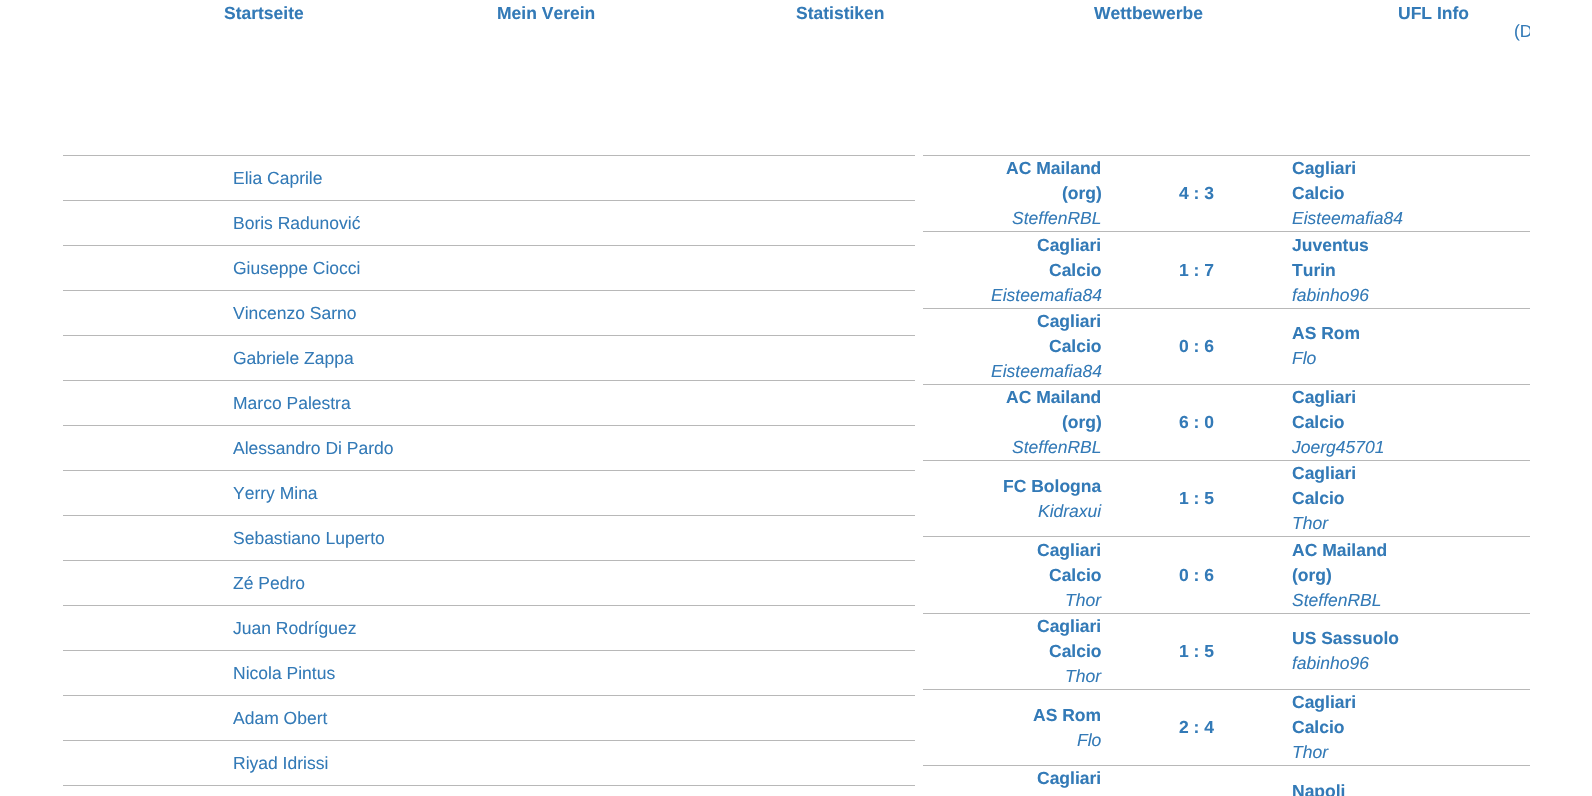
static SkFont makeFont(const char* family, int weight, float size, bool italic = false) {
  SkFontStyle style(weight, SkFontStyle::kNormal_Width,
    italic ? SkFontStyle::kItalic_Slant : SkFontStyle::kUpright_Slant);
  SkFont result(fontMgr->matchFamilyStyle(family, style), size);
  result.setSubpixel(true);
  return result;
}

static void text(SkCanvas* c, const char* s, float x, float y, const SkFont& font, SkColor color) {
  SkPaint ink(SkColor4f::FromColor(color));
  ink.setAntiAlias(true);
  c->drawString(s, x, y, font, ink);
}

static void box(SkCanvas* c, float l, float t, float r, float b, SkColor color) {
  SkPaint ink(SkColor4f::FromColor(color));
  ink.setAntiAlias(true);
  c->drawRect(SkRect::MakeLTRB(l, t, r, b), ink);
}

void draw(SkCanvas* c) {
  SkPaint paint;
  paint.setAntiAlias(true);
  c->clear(0xffffffff);
  SkFont face1 = makeFont("Liberation Sans", 700, 17.5f);
  text(c, "Startseite", 224, 19, face1, 0xff337ab7);
  text(c, "Mein Verein", 497, 19, face1, 0xff337ab7);
  text(c, "Statistiken", 796, 19, face1, 0xff337ab7);
  text(c, "Wettbewerbe", 1094, 19, face1, 0xff337ab7);
  text(c, "UFL Info", 1398, 19, face1, 0xff337ab7);
  c->save();
  c->clipRect(SkRect::MakeLTRB(63, 16, 1530, 50));
  SkFont face2 = makeFont("Liberation Sans", 400, 17.5f);
  text(c, "(D", 1514, 37, face2, 0xff337ab7);
  c->restore();
  box(c, 63, 155, 915, 156, 0xffb8b8b8);
  text(c, "Elia Caprile", 233, 184, face2, 0xff337ab7);
  box(c, 63, 200, 915, 201, 0xffb8b8b8);
  text(c, "Boris Radunović", 233, 229, face2, 0xff337ab7);
  box(c, 63, 245, 915, 246, 0xffb8b8b8);
  text(c, "Giuseppe Ciocci", 233, 274, face2, 0xff337ab7);
  box(c, 63, 290, 915, 291, 0xffb8b8b8);
  text(c, "Vincenzo Sarno", 233, 319, face2, 0xff337ab7);
  box(c, 63, 335, 915, 336, 0xffb8b8b8);
  text(c, "Gabriele Zappa", 233, 364, face2, 0xff337ab7);
  box(c, 63, 380, 915, 381, 0xffb8b8b8);
  text(c, "Marco Palestra", 233, 409, face2, 0xff337ab7);
  box(c, 63, 425, 915, 426, 0xffb8b8b8);
  text(c, "Alessandro Di Pardo", 233, 454, face2, 0xff337ab7);
  box(c, 63, 470, 915, 471, 0xffb8b8b8);
  text(c, "Yerry Mina", 233, 499, face2, 0xff337ab7);
  box(c, 63, 515, 915, 516, 0xffb8b8b8);
  text(c, "Sebastiano Luperto", 233, 544, face2, 0xff337ab7);
  box(c, 63, 560, 915, 561, 0xffb8b8b8);
  text(c, "Zé Pedro", 233, 589, face2, 0xff337ab7);
  box(c, 63, 605, 915, 606, 0xffb8b8b8);
  text(c, "Juan Rodríguez", 233, 634, face2, 0xff337ab7);
  box(c, 63, 650, 915, 651, 0xffb8b8b8);
  text(c, "Nicola Pintus", 233, 679, face2, 0xff337ab7);
  box(c, 63, 695, 915, 696, 0xffb8b8b8);
  text(c, "Adam Obert", 233, 724, face2, 0xff337ab7);
  box(c, 63, 740, 915, 741, 0xffb8b8b8);
  text(c, "Riyad Idrissi", 233, 769, face2, 0xff337ab7);
  box(c, 63, 785, 915, 786, 0xffb8b8b8);
  box(c, 923, 155, 1530, 156, 0xffb8b8b8);
  text(c, "AC Mailand", 1006, 174, face1, 0xff337ab7);
  text(c, "(org)", 1062, 199, face1, 0xff337ab7);
  SkFont face3 = makeFont("Liberation Sans", 400, 17.5f, true);
  text(c, "SteffenRBL", 1012, 224, face3, 0xff337ab7);
  text(c, "4 : 3", 1179, 199, face1, 0xff337ab7);
  text(c, "Cagliari", 1292, 174, face1, 0xff337ab7);
  text(c, "Calcio", 1292, 199, face1, 0xff337ab7);
  text(c, "Eisteemafia84", 1292, 224, face3, 0xff337ab7);
  box(c, 923, 231, 1530, 232, 0xffb8b8b8);
  text(c, "Cagliari", 1037, 251, face1, 0xff337ab7);
  text(c, "Calcio", 1049, 276, face1, 0xff337ab7);
  text(c, "Eisteemafia84", 991, 301, face3, 0xff337ab7);
  text(c, "1 : 7", 1179, 276, face1, 0xff337ab7);
  text(c, "Juventus", 1292, 251, face1, 0xff337ab7);
  text(c, "Turin", 1292, 276, face1, 0xff337ab7);
  text(c, "fabinho96", 1292, 301, face3, 0xff337ab7);
  box(c, 923, 308, 1530, 309, 0xffb8b8b8);
  text(c, "Cagliari", 1037, 327, face1, 0xff337ab7);
  text(c, "Calcio", 1049, 352, face1, 0xff337ab7);
  text(c, "Eisteemafia84", 991, 377, face3, 0xff337ab7);
  text(c, "0 : 6", 1179, 352, face1, 0xff337ab7);
  text(c, "AS Rom", 1292, 339, face1, 0xff337ab7);
  text(c, "Flo", 1292, 364, face3, 0xff337ab7);
  box(c, 923, 384, 1530, 385, 0xffb8b8b8);
  text(c, "AC Mailand", 1006, 403, face1, 0xff337ab7);
  text(c, "(org)", 1062, 428, face1, 0xff337ab7);
  text(c, "SteffenRBL", 1012, 453, face3, 0xff337ab7);
  text(c, "6 : 0", 1179, 428, face1, 0xff337ab7);
  text(c, "Cagliari", 1292, 403, face1, 0xff337ab7);
  text(c, "Calcio", 1292, 428, face1, 0xff337ab7);
  text(c, "Joerg45701", 1292, 453, face3, 0xff337ab7);
  box(c, 923, 460, 1530, 461, 0xffb8b8b8);
  text(c, "FC Bologna", 1003, 492, face1, 0xff337ab7);
  text(c, "Kidraxui", 1038, 517, face3, 0xff337ab7);
  text(c, "1 : 5", 1179, 504, face1, 0xff337ab7);
  text(c, "Cagliari", 1292, 479, face1, 0xff337ab7);
  text(c, "Calcio", 1292, 504, face1, 0xff337ab7);
  text(c, "Thor", 1292, 529, face3, 0xff337ab7);
  box(c, 923, 536, 1530, 537, 0xffb8b8b8);
  text(c, "Cagliari", 1037, 556, face1, 0xff337ab7);
  text(c, "Calcio", 1049, 581, face1, 0xff337ab7);
  text(c, "Thor", 1065, 606, face3, 0xff337ab7);
  text(c, "0 : 6", 1179, 581, face1, 0xff337ab7);
  text(c, "AC Mailand", 1292, 556, face1, 0xff337ab7);
  text(c, "(org)", 1292, 581, face1, 0xff337ab7);
  text(c, "SteffenRBL", 1292, 606, face3, 0xff337ab7);
  box(c, 923, 613, 1530, 614, 0xffb8b8b8);
  text(c, "Cagliari", 1037, 632, face1, 0xff337ab7);
  text(c, "Calcio", 1049, 657, face1, 0xff337ab7);
  text(c, "Thor", 1065, 682, face3, 0xff337ab7);
  text(c, "1 : 5", 1179, 657, face1, 0xff337ab7);
  text(c, "US Sassuolo", 1292, 644, face1, 0xff337ab7);
  text(c, "fabinho96", 1292, 669, face3, 0xff337ab7);
  box(c, 923, 689, 1530, 690, 0xffb8b8b8);
  text(c, "AS Rom", 1033, 721, face1, 0xff337ab7);
  text(c, "Flo", 1077, 746, face3, 0xff337ab7);
  text(c, "2 : 4", 1179, 733, face1, 0xff337ab7);
  text(c, "Cagliari", 1292, 708, face1, 0xff337ab7);
  text(c, "Calcio", 1292, 733, face1, 0xff337ab7);
  text(c, "Thor", 1292, 758, face3, 0xff337ab7);
  box(c, 923, 765, 1530, 766, 0xffb8b8b8);
  text(c, "Cagliari", 1037, 784, face1, 0xff337ab7);
  text(c, "Napoli", 1292, 797, face1, 0xff337ab7);
}
